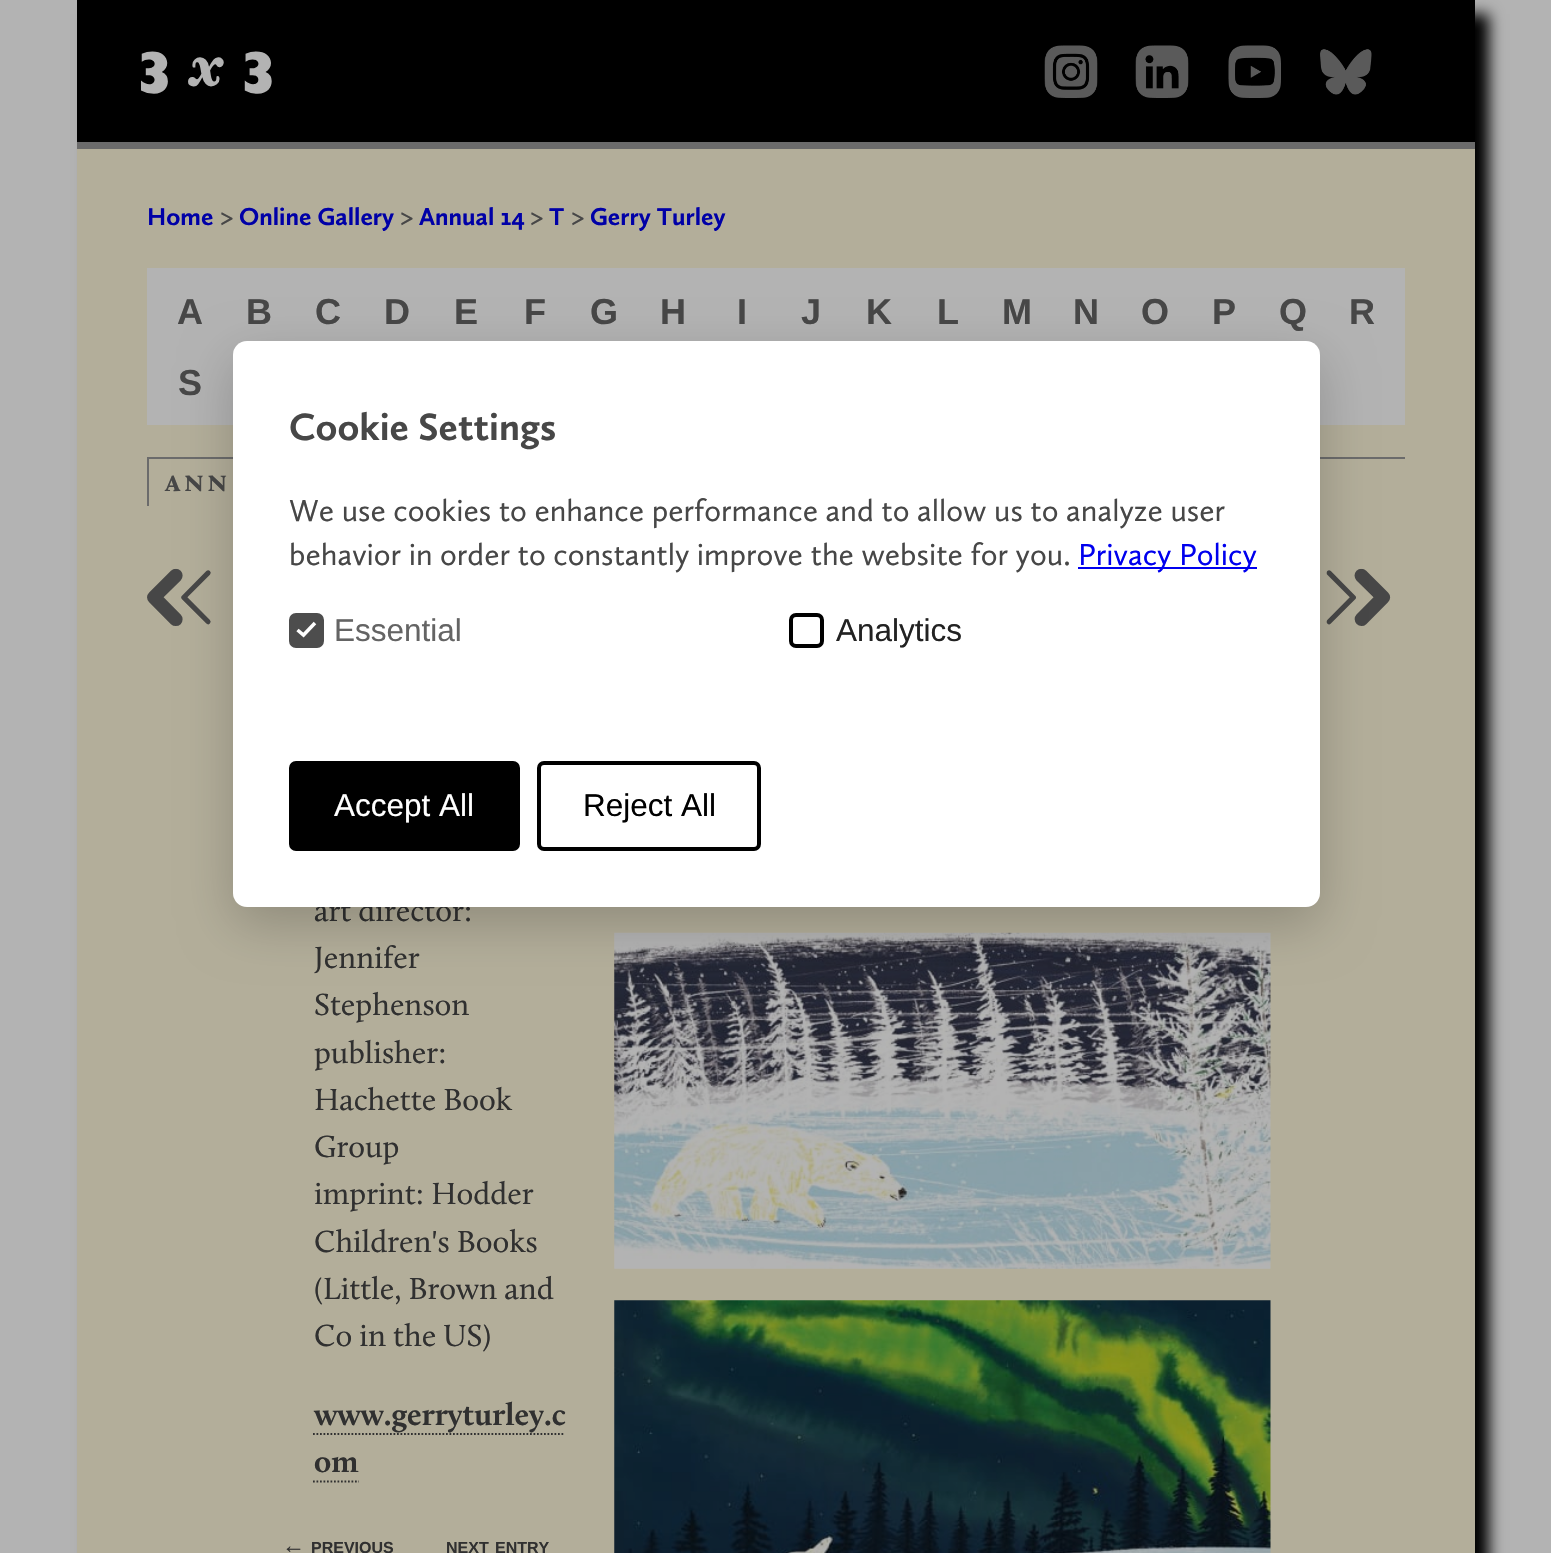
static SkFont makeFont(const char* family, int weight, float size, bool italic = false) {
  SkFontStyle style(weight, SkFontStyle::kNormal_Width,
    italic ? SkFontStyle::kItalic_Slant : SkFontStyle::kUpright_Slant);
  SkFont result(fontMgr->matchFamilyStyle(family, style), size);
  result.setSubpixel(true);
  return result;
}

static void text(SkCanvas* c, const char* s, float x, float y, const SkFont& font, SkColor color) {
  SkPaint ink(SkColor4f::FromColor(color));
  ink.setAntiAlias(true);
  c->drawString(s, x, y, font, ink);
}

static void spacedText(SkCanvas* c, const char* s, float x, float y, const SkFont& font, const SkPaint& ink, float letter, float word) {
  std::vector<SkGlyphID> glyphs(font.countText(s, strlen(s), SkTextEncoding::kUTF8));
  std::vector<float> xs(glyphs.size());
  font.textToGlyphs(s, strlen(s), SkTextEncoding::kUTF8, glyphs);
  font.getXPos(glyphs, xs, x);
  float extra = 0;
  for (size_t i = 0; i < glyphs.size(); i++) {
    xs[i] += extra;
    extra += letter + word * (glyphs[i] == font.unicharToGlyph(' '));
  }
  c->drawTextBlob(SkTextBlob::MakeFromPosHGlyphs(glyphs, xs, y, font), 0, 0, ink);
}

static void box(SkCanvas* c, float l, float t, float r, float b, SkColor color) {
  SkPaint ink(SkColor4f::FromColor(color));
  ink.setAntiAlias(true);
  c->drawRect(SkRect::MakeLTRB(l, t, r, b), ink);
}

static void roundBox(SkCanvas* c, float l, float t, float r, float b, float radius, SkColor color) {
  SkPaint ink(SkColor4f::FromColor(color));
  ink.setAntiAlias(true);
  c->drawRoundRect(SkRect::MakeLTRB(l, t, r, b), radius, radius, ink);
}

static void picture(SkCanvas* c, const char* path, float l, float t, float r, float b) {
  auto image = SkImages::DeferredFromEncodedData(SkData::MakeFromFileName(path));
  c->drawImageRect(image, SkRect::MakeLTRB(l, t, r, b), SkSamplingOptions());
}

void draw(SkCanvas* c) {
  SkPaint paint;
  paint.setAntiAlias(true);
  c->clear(0xffb3b3b3);
  paint.setColor(0xff000000);
  paint.setMaskFilter(SkMaskFilter::MakeBlur(kNormal_SkBlurStyle, 7));
  c->drawRect(SkRect::MakeLTRB(91, 14, 1489, 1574), paint);
  paint.setMaskFilter(nullptr);
  box(c, 77, 149, 1475, 1553, 0xffb3ae9a);
  box(c, 77, 0, 1475, 142, 0xff000000);
  box(c, 77, 142, 1475, 149, 0xff6b6b6b);
  picture(c, "img_01.png", 141, 51, 272, 94);
  picture(c, "img_02.png", 1044, 45, 1098, 98);
  picture(c, "img_03.png", 1135, 45, 1189, 98);
  picture(c, "img_04.png", 1228, 45, 1281, 98);
  picture(c, "img_05.png", 1320, 49, 1372, 95);
  SkFont face1 = makeFont("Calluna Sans", 700, 25.25f);
  text(c, "Home", 147, 225, face1, 0xff0000a7);
  text(c, ">", 220, 225, face1, 0xff474747);
  text(c, "Online Gallery", 239, 225, face1, 0xff0000a7);
  text(c, ">", 400, 225, face1, 0xff474747);
  text(c, "Annual 14", 419, 225, face1, 0xff0000a7);
  text(c, ">", 530, 225, face1, 0xff474747);
  text(c, "T", 549, 225, face1, 0xff0000a7);
  text(c, ">", 571, 225, face1, 0xff474747);
  text(c, "Gerry Turley", 590, 225, face1, 0xff0000a7);
  box(c, 147, 268, 1405, 425, 0xffb3b3b3);
  SkFont face2 = makeFont("Liberation Sans", 700, 36);
  text(c, "A", 177, 324, face2, 0xff474747);
  text(c, "B", 246, 324, face2, 0xff474747);
  text(c, "C", 315, 324, face2, 0xff474747);
  text(c, "D", 384, 324, face2, 0xff474747);
  text(c, "E", 454, 324, face2, 0xff474747);
  text(c, "F", 524, 324, face2, 0xff474747);
  text(c, "G", 590, 324, face2, 0xff474747);
  text(c, "H", 660, 324, face2, 0xff474747);
  text(c, "I", 737, 324, face2, 0xff474747);
  text(c, "J", 801, 324, face2, 0xff474747);
  text(c, "K", 866, 324, face2, 0xff474747);
  text(c, "L", 937, 324, face2, 0xff474747);
  text(c, "M", 1002, 324, face2, 0xff474747);
  text(c, "N", 1073, 324, face2, 0xff474747);
  text(c, "O", 1141, 324, face2, 0xff474747);
  text(c, "P", 1212, 324, face2, 0xff474747);
  text(c, "Q", 1279, 324, face2, 0xff474747);
  text(c, "R", 1349, 324, face2, 0xff474747);
  text(c, "S", 178, 395, face2, 0xff474747);
  box(c, 147, 457, 1405, 459, 0xff6b6b6b);
  box(c, 147, 457, 149, 506, 0xff6b6b6b);
  SkFont face3 = makeFont("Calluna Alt", 700, 31.5f);
  paint.setColor(0xff474747);
  spacedText(c, "ann", 165, 491, face3, paint, 3.5f, 0);
  picture(c, "img_06.png", 147, 568, 211, 626);
  picture(c, "img_07.png", 1326, 568, 1391, 626);
  SkFont face4 = makeFont("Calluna", 400, 31.5f);
  text(c, "art director:", 314, 921, face4, 0xff303030);
  text(c, "Jennifer", 314, 968, face4, 0xff303030);
  text(c, "Stephenson", 314, 1015, face4, 0xff303030);
  text(c, "publisher:", 314, 1063, face4, 0xff303030);
  text(c, "Hachette Book", 314, 1110, face4, 0xff303030);
  text(c, "Group", 314, 1157, face4, 0xff303030);
  text(c, "imprint: Hodder", 314, 1204, face4, 0xff303030);
  text(c, "Children's Books", 314, 1252, face4, 0xff303030);
  text(c, "(Little, Brown and", 314, 1299, face4, 0xff303030);
  text(c, "Co in the US)", 314, 1346, face4, 0xff303030);
  SkFont face5 = makeFont("Calluna", 700, 31.5f);
  text(c, "www.gerryturley.c", 314, 1425, face5, 0xff303030);
  paint.setStyle(SkPaint::kStroke_Style);
  paint.setStrokeWidth(1.8f);
  paint.setColor(0xff303030);
  paint.setPathEffect(SkDashPathEffect::Make({{1.75f, 1.75f}}, 0));
  c->drawPath(SkPathBuilder().moveTo(313, 1434).lineTo(565, 1434).detach(), paint);
  paint.setPathEffect(nullptr);
  text(c, "om", 314, 1472, face5, 0xff303030);
  paint.setPathEffect(SkDashPathEffect::Make({{1.75f, 1.75f}}, 0));
  c->drawPath(SkPathBuilder().moveTo(313, 1481.5f).lineTo(359, 1481.5f).detach(), paint);
  paint.setPathEffect(nullptr);
  SkFont face6 = makeFont("Liberation Sans", 700, 23);
  text(c, "←", 282, 1553, face6, 0xff303030);
  SkFont face7 = makeFont("Liberation Sans", 700, 16);
  text(c, "PREVIOUS", 311, 1553, face7, 0xff303030);
  text(c, "NEXT", 446, 1553, face7, 0xff303030);
  text(c, "ENTRY", 495, 1553, face7, 0xff303030);
  picture(c, "img_08.png", 614, 932, 1271, 1269);
  picture(c, "img_09.png", 614, 1300, 1271, 1553);
  paint.setStyle(SkPaint::kFill_Style);
  paint.setColor(0x33000000);
  paint.setMaskFilter(SkMaskFilter::MakeBlur(kNormal_SkBlurStyle, 26));
  c->drawRoundRect(SkRect::MakeLTRB(233, 359, 1320, 924), 14, 14, paint);
  paint.setMaskFilter(nullptr);
  roundBox(c, 233, 341, 1320, 907, 14, 0xffffffff);
  SkFont face8 = makeFont("Calluna Sans", 700, 39.25f);
  text(c, "Cookie Settings", 289, 440, face8, 0xff474747);
  SkFont face9 = makeFont("Calluna Sans", 400, 31.5f);
  text(c, "We use cookies to enhance performance and to allow us to analyze user", 289, 521, face9, 0xff474747);
  text(c, "behavior in order to constantly improve the website for you.", 289, 565, face9, 0xff474747);
  box(c, 1078, 567, 1257, 569, 0xff0000ee);
  text(c, "Privacy Policy", 1078, 565, face9, 0xff0000ee);
  paint.setColor(0xff4d4d4d);
  c->drawRoundRect(SkRect::MakeLTRB(291, 615, 322, 646), 5, 5, paint);
  paint.setStyle(SkPaint::kStroke_Style);
  paint.setStrokeWidth(4);
  c->drawRoundRect(SkRect::MakeLTRB(291, 615, 322, 646), 5, 5, paint);
  SkFont face10 = makeFont("Liberation Sans", 400, 31.5f);
  text(c, "Essential", 334, 641, face10, 0xff646464);
  paint.setStrokeWidth(3.5f);
  paint.setColor(0xffffffff);
  c->drawPath(SkPathBuilder().moveTo(297.5f, 630).lineTo(303.5f, 635).lineTo(315, 623).detach(), paint);
  paint.setStrokeWidth(4);
  paint.setColor(0xff000000);
  c->drawRoundRect(SkRect::MakeLTRB(791, 615, 822, 646), 5, 5, paint);
  text(c, "Analytics", 836, 641, face10, 0xff222222);
  paint.setStyle(SkPaint::kFill_Style);
  c->drawRoundRect(SkRect::MakeLTRB(291, 763, 518, 849), 5, 5, paint);
  paint.setStyle(SkPaint::kStroke_Style);
  c->drawRoundRect(SkRect::MakeLTRB(291, 763, 518, 849), 5, 5, paint);
  text(c, "Accept All", 334, 816, face10, 0xffffffff);
  c->drawRoundRect(SkRect::MakeLTRB(539, 763, 759, 849), 5, 5, paint);
  text(c, "Reject All", 583, 816, face10, 0xff000000);
}
